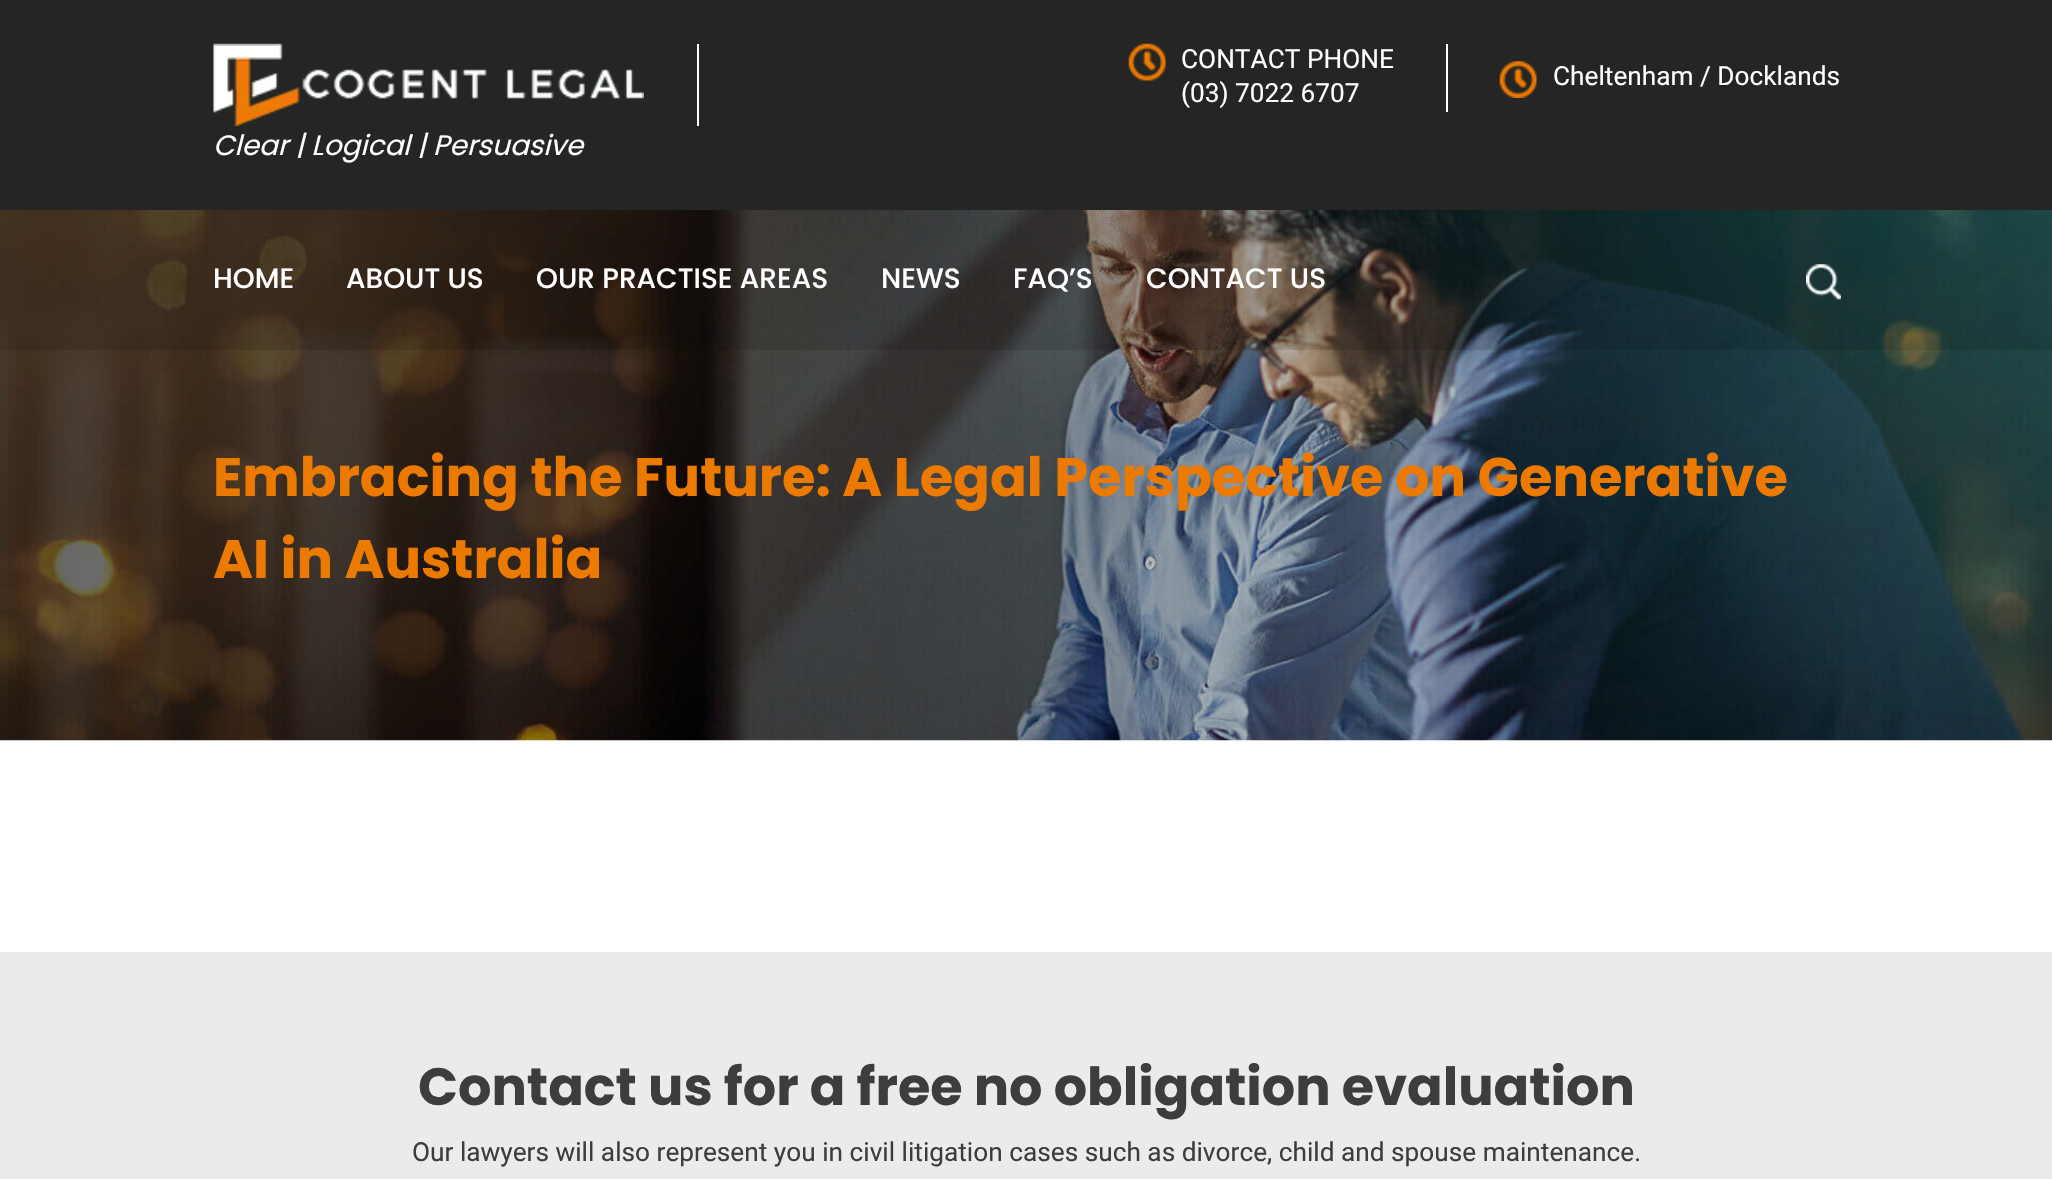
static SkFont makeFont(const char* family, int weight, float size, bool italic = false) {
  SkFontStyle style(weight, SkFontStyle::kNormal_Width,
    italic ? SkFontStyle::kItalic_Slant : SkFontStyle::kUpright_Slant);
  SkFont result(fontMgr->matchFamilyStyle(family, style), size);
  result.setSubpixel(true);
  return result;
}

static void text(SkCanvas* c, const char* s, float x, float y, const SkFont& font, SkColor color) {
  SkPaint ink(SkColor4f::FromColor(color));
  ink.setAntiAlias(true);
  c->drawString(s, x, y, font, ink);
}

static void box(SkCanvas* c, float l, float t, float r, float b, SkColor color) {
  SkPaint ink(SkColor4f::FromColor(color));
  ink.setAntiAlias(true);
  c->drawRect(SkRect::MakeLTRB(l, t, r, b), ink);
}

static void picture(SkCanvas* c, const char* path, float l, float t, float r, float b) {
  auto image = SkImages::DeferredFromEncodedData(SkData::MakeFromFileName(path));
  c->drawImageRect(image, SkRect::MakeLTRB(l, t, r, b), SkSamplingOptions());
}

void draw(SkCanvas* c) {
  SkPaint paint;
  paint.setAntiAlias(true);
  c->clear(0xffffffff);
  box(c, 0, 0, 2052, 210, 0xff252525);
  box(c, 1446, 44, 1448, 112, 0xffffffff);
  picture(c, "img_01.png", 1128, 43, 1166, 81);
  SkFont face1 = makeFont("Roboto", 400, 26.25f);
  text(c, "CONTACT PHONE", 1181, 68, face1, 0xffffffff);
  text(c, "(03) 7022 6707", 1181, 102, face1, 0xffffffff);
  picture(c, "img_02.png", 1499, 61, 1537, 98);
  text(c, "Cheltenham / Docklands", 1553, 85, face1, 0xffffffff);
  box(c, 697, 44, 699, 126, 0xffffffff);
  picture(c, "img_03.png", 213, 43, 644, 126);
  SkFont face2 = makeFont("Poppins", 400, 28, true);
  text(c, "Clear | Logical | Persuasive", 213, 155, face2, 0xffffffff);
  picture(c, "img_05.png", 0, 210, 2052, 741);
  box(c, 0, 210, 2052, 350, 0x21000000);
  SkFont face3 = makeFont("Poppins", 500, 28);
  text(c, "HOME", 213, 288, face3, 0xffffffff);
  text(c, "ABOUT US", 346, 288, face3, 0xffffffff);
  text(c, "OUR PRACTISE AREAS", 536, 288, face3, 0xffffffff);
  text(c, "NEWS", 881, 288, face3, 0xffffffff);
  text(c, "FAQ’S", 1013, 288, face3, 0xffffffff);
  text(c, "CONTACT US", 1146, 288, face3, 0xffffffff);
  picture(c, "img_04.png", 1806, 264, 1841, 300);
  SkFont face4 = makeFont("Poppins", 700, 54.25f);
  text(c, "Embracing the Future: A Legal Perspective on Generative", 213, 496, face4, 0xffed7a00);
  text(c, "AI in Australia", 213, 578, face4, 0xffed7a00);
  box(c, 0, 952, 2052, 1179, 0xffebebeb);
  SkFont face5 = makeFont("Poppins", 700, 52.5f);
  text(c, "Contact us for a free no obligation evaluation", 418, 1105, face5, 0xff3d3d3d);
  text(c, "Our lawyers will also represent you in civil litigation cases such as divorce, child and spouse maintenance.", 412, 1161, face1, 0xff3d3d3d);
}
